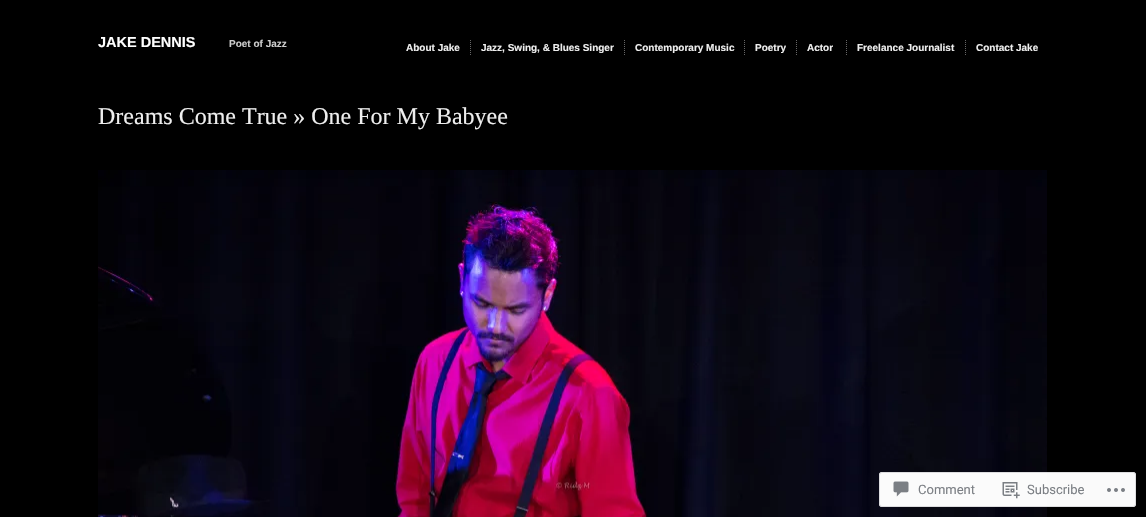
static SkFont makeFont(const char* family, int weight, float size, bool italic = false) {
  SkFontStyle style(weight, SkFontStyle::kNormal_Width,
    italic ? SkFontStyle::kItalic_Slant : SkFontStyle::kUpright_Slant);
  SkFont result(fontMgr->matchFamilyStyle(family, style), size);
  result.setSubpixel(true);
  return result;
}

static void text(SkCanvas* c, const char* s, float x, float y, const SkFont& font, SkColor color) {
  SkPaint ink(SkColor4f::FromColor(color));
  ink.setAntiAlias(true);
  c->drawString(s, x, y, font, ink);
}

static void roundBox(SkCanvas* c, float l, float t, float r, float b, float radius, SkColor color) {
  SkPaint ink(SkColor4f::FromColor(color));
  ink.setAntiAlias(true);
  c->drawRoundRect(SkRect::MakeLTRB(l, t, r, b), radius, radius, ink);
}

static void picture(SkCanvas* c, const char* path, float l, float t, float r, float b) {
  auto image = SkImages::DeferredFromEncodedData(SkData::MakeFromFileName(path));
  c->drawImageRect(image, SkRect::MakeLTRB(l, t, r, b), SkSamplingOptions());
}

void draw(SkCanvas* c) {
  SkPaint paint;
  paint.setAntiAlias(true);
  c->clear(0xff000000);
  SkFont face1 = makeFont("Liberation Sans", 700, 14.5f);
  text(c, "JAKE DENNIS", 98, 47, face1, 0xffffffff);
  SkFont face2 = makeFont("Liberation Sans", 700, 10);
  text(c, "Poet of Jazz", 229, 47, face2, 0xffcccccc);
  paint.setStyle(SkPaint::kStroke_Style);
  paint.setStrokeWidth(1);
  paint.setColor(0xff666666);
  paint.setPathEffect(SkDashPathEffect::Make({{1, 1}}, 0));
  c->drawPath(SkPathBuilder().moveTo(470.5f, 40).lineTo(470.5f, 55).detach(), paint);
  paint.setPathEffect(nullptr);
  text(c, "About Jake", 406, 51, face2, 0xffeeeeee);
  paint.setPathEffect(SkDashPathEffect::Make({{1, 1}}, 0));
  c->drawPath(SkPathBuilder().moveTo(624.5f, 40).lineTo(624.5f, 55).detach(), paint);
  paint.setPathEffect(nullptr);
  text(c, "Jazz, Swing, & Blues Singer", 481, 51, face2, 0xffeeeeee);
  paint.setPathEffect(SkDashPathEffect::Make({{1, 1}}, 0));
  c->drawPath(SkPathBuilder().moveTo(744.5f, 40).lineTo(744.5f, 55).detach(), paint);
  paint.setPathEffect(nullptr);
  text(c, "Contemporary Music", 635, 51, face2, 0xffeeeeee);
  paint.setPathEffect(SkDashPathEffect::Make({{1, 1}}, 0));
  c->drawPath(SkPathBuilder().moveTo(796.5f, 40).lineTo(796.5f, 55).detach(), paint);
  paint.setPathEffect(nullptr);
  text(c, "Poetry", 755, 51, face2, 0xffeeeeee);
  paint.setPathEffect(SkDashPathEffect::Make({{1, 1}}, 0));
  c->drawPath(SkPathBuilder().moveTo(846.5f, 40).lineTo(846.5f, 55).detach(), paint);
  paint.setPathEffect(nullptr);
  text(c, "Actor", 807, 51, face2, 0xffeeeeee);
  paint.setPathEffect(SkDashPathEffect::Make({{1, 1}}, 0));
  c->drawPath(SkPathBuilder().moveTo(965.5f, 40).lineTo(965.5f, 55).detach(), paint);
  paint.setPathEffect(nullptr);
  text(c, "Freelance Journalist", 857, 51, face2, 0xffeeeeee);
  text(c, "Contact Jake", 976, 51, face2, 0xffeeeeee);
  SkFont face3 = makeFont("Liberation Serif", 400, 24);
  text(c, "Dreams Come True » One For My Babyee", 98, 124, face3, 0xffeeeeee);
  picture(c, "img_01.png", 98, 170, 1047, 517);
  roundBox(c, 879, 472, 1136, 507, 3, 0xfaffffff);
  paint.setColor(0xfadcdcde);
  c->drawRoundRect(SkRect::MakeLTRB(879.5f, 472.5f, 1135.5f, 506.5f), 2.5f, 2.5f, paint);
  picture(c, "img_02.png", 893, 481, 909, 497);
  SkFont face4 = makeFont("Roboto", 400, 13);
  text(c, "Comment", 918, 494, face4, 0xff7b7f84);
  picture(c, "img_03.png", 1002, 482, 1020, 499);
  text(c, "Subscribe", 1027, 494, face4, 0xff7b7f84);
  picture(c, "img_04.png", 1107, 488, 1125, 492);
}
